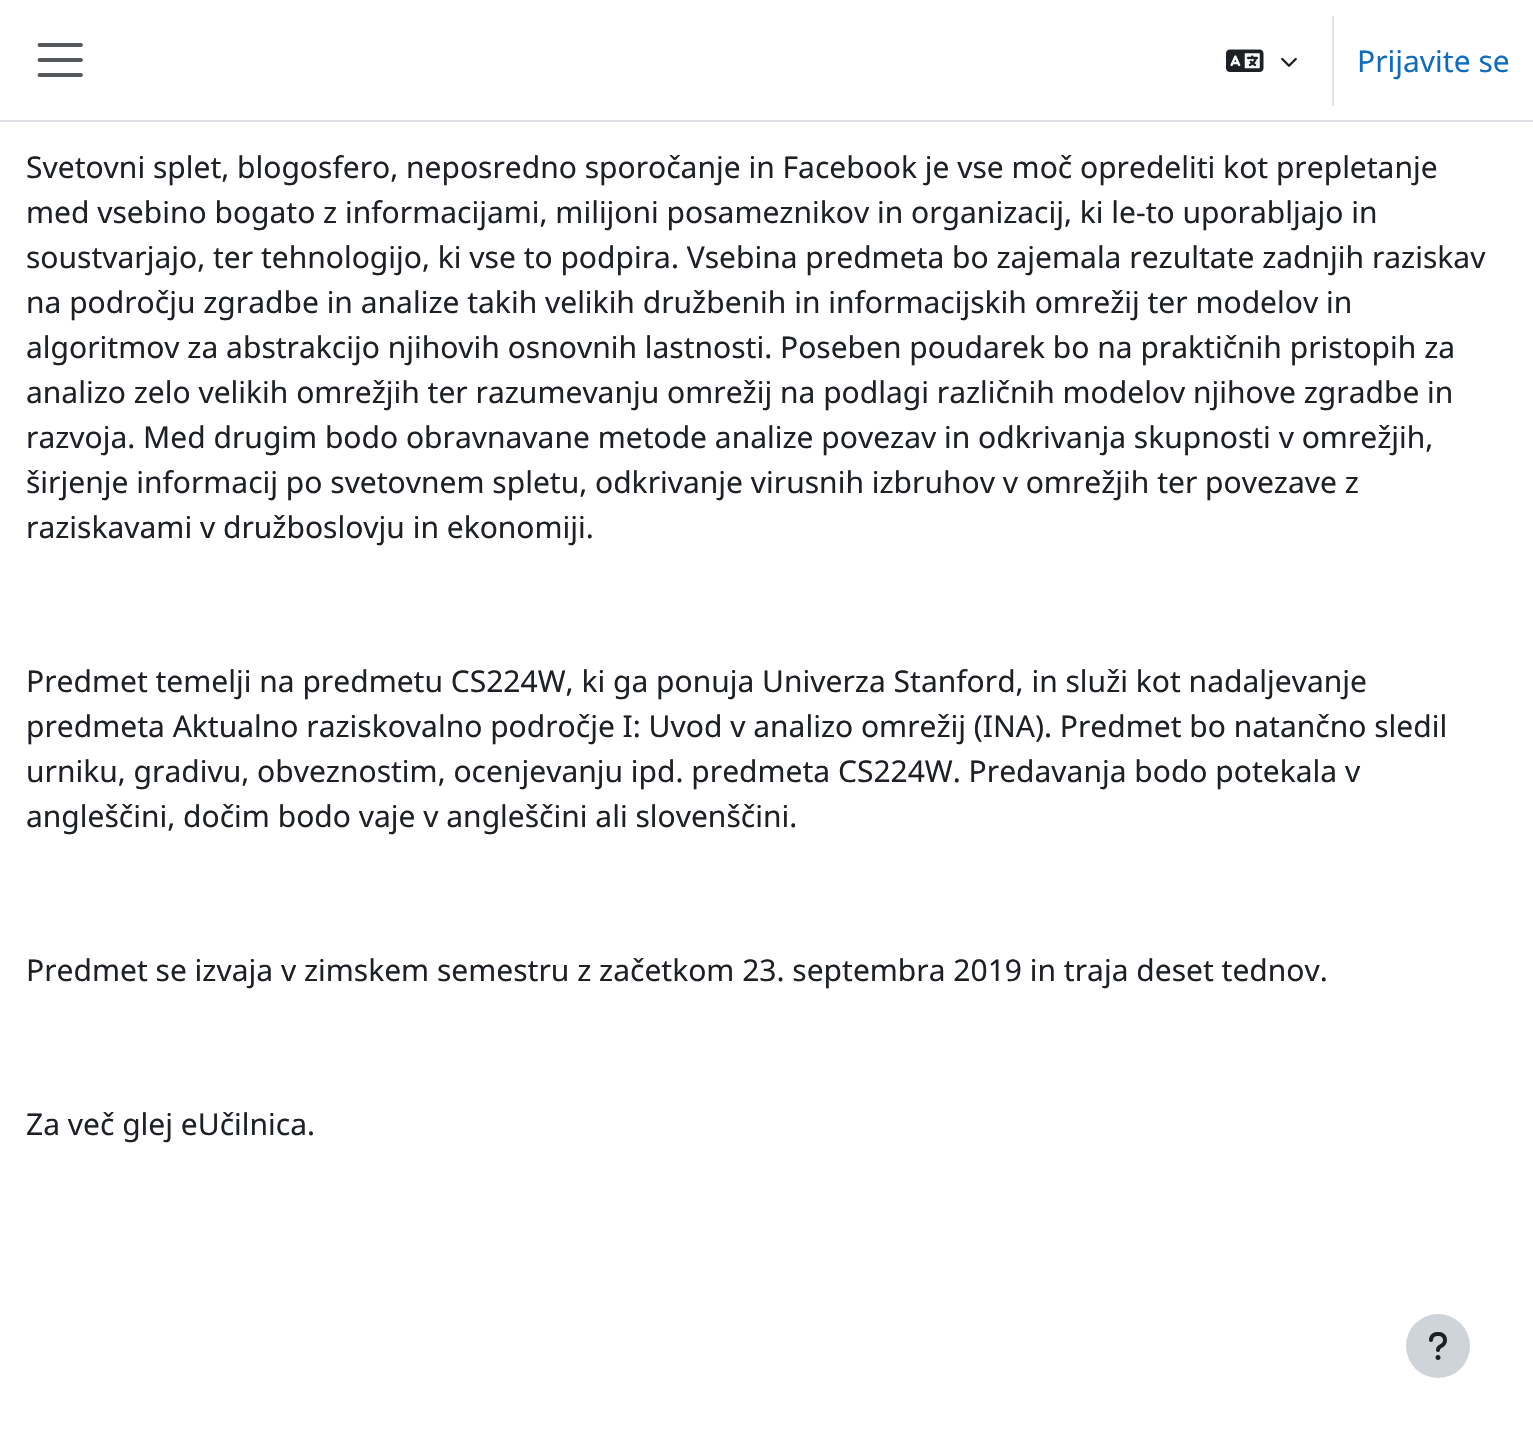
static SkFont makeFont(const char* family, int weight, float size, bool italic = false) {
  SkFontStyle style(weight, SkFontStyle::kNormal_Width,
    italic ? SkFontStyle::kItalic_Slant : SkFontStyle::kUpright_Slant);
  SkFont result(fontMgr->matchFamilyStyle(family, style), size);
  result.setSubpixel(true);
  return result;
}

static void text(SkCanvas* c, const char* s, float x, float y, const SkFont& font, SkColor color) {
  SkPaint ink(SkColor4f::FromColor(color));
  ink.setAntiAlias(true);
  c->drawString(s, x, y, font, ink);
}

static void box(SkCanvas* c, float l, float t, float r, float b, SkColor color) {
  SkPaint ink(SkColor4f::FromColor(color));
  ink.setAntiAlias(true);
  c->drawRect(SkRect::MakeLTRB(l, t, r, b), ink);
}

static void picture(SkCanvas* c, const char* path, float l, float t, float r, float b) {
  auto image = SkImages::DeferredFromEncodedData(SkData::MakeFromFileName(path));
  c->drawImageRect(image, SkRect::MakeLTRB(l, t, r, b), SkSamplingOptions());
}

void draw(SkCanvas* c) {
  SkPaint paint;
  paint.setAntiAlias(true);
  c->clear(0xffffffff);
  box(c, 0, 120, 1533, 122, 0xffdee2e6);
  paint.setStyle(SkPaint::kStroke_Style);
  paint.setStrokeWidth(3.8f);
  paint.setStrokeCap(SkPaint::kRound_Cap);
  paint.setColor(0xff56595c);
  c->drawPath(SkPathBuilder().moveTo(39.5f, 45).lineTo(81, 45).moveTo(39.5f, 60).lineTo(81, 60).moveTo(39.5f, 75).lineTo(81, 75).detach(), paint);
  picture(c, "img_01.png", 1226, 49, 1264, 72);
  picture(c, "img_02.png", 1281, 57, 1297, 67);
  box(c, 1332, 16, 1334, 106, 0xffdee2e6);
  SkFont face1 = makeFont("Noto Sans", 400, 30);
  text(c, "Prijavite se", 1357, 72, face1, 0xff0f6cbf);
  text(c, "Svetovni splet, blogosfero, neposredno sporočanje in Facebook je vse moč opredeliti kot prepletanje", 26, 178, face1, 0xff1d2125);
  text(c, "med vsebino bogato z informacijami, milijoni posameznikov in organizacij, ki le-to uporabljajo in", 26, 223, face1, 0xff1d2125);
  text(c, "soustvarjajo, ter tehnologijo, ki vse to podpira. Vsebina predmeta bo zajemala rezultate zadnjih raziskav", 26, 268, face1, 0xff1d2125);
  text(c, "na področju zgradbe in analize takih velikih družbenih in informacijskih omrežij ter modelov in", 26, 313, face1, 0xff1d2125);
  text(c, "algoritmov za abstrakcijo njihovih osnovnih lastnosti. Poseben poudarek bo na praktičnih pristopih za", 26, 358, face1, 0xff1d2125);
  text(c, "analizo zelo velikih omrežjih ter razumevanju omrežij na podlagi različnih modelov njihove zgradbe in", 26, 403, face1, 0xff1d2125);
  text(c, "razvoja. Med drugim bodo obravnavane metode analize povezav in odkrivanja skupnosti v omrežjih,", 26, 448, face1, 0xff1d2125);
  text(c, "širjenje informacij po svetovnem spletu, odkrivanje virusnih izbruhov v omrežjih ter povezave z", 26, 493, face1, 0xff1d2125);
  text(c, "raziskavami v družboslovju in ekonomiji.", 26, 538, face1, 0xff1d2125);
  text(c, "Predmet temelji na predmetu CS224W, ki ga ponuja Univerza Stanford, in služi kot nadaljevanje", 26, 692, face1, 0xff1d2125);
  text(c, "predmeta Aktualno raziskovalno področje I: Uvod v analizo omrežij (INA). Predmet bo natančno sledil", 26, 737, face1, 0xff1d2125);
  text(c, "urniku, gradivu, obveznostim, ocenjevanju ipd. predmeta CS224W. Predavanja bodo potekala v", 26, 782, face1, 0xff1d2125);
  text(c, "angleščini, dočim bodo vaje v angleščini ali slovenščini.", 26, 827, face1, 0xff1d2125);
  text(c, "Predmet se izvaja v zimskem semestru z začetkom 23. septembra 2019 in traja deset tednov.", 26, 981, face1, 0xff1d2125);
  text(c, "Za več glej eUčilnica.", 26, 1135, face1, 0xff1d2125);
  paint.setStyle(SkPaint::kFill_Style);
  paint.setColor(0xffced4da);
  c->drawCircle(1438, 1346, 32, paint);
  picture(c, "img_03.png", 1429, 1332, 1447, 1360);
}
